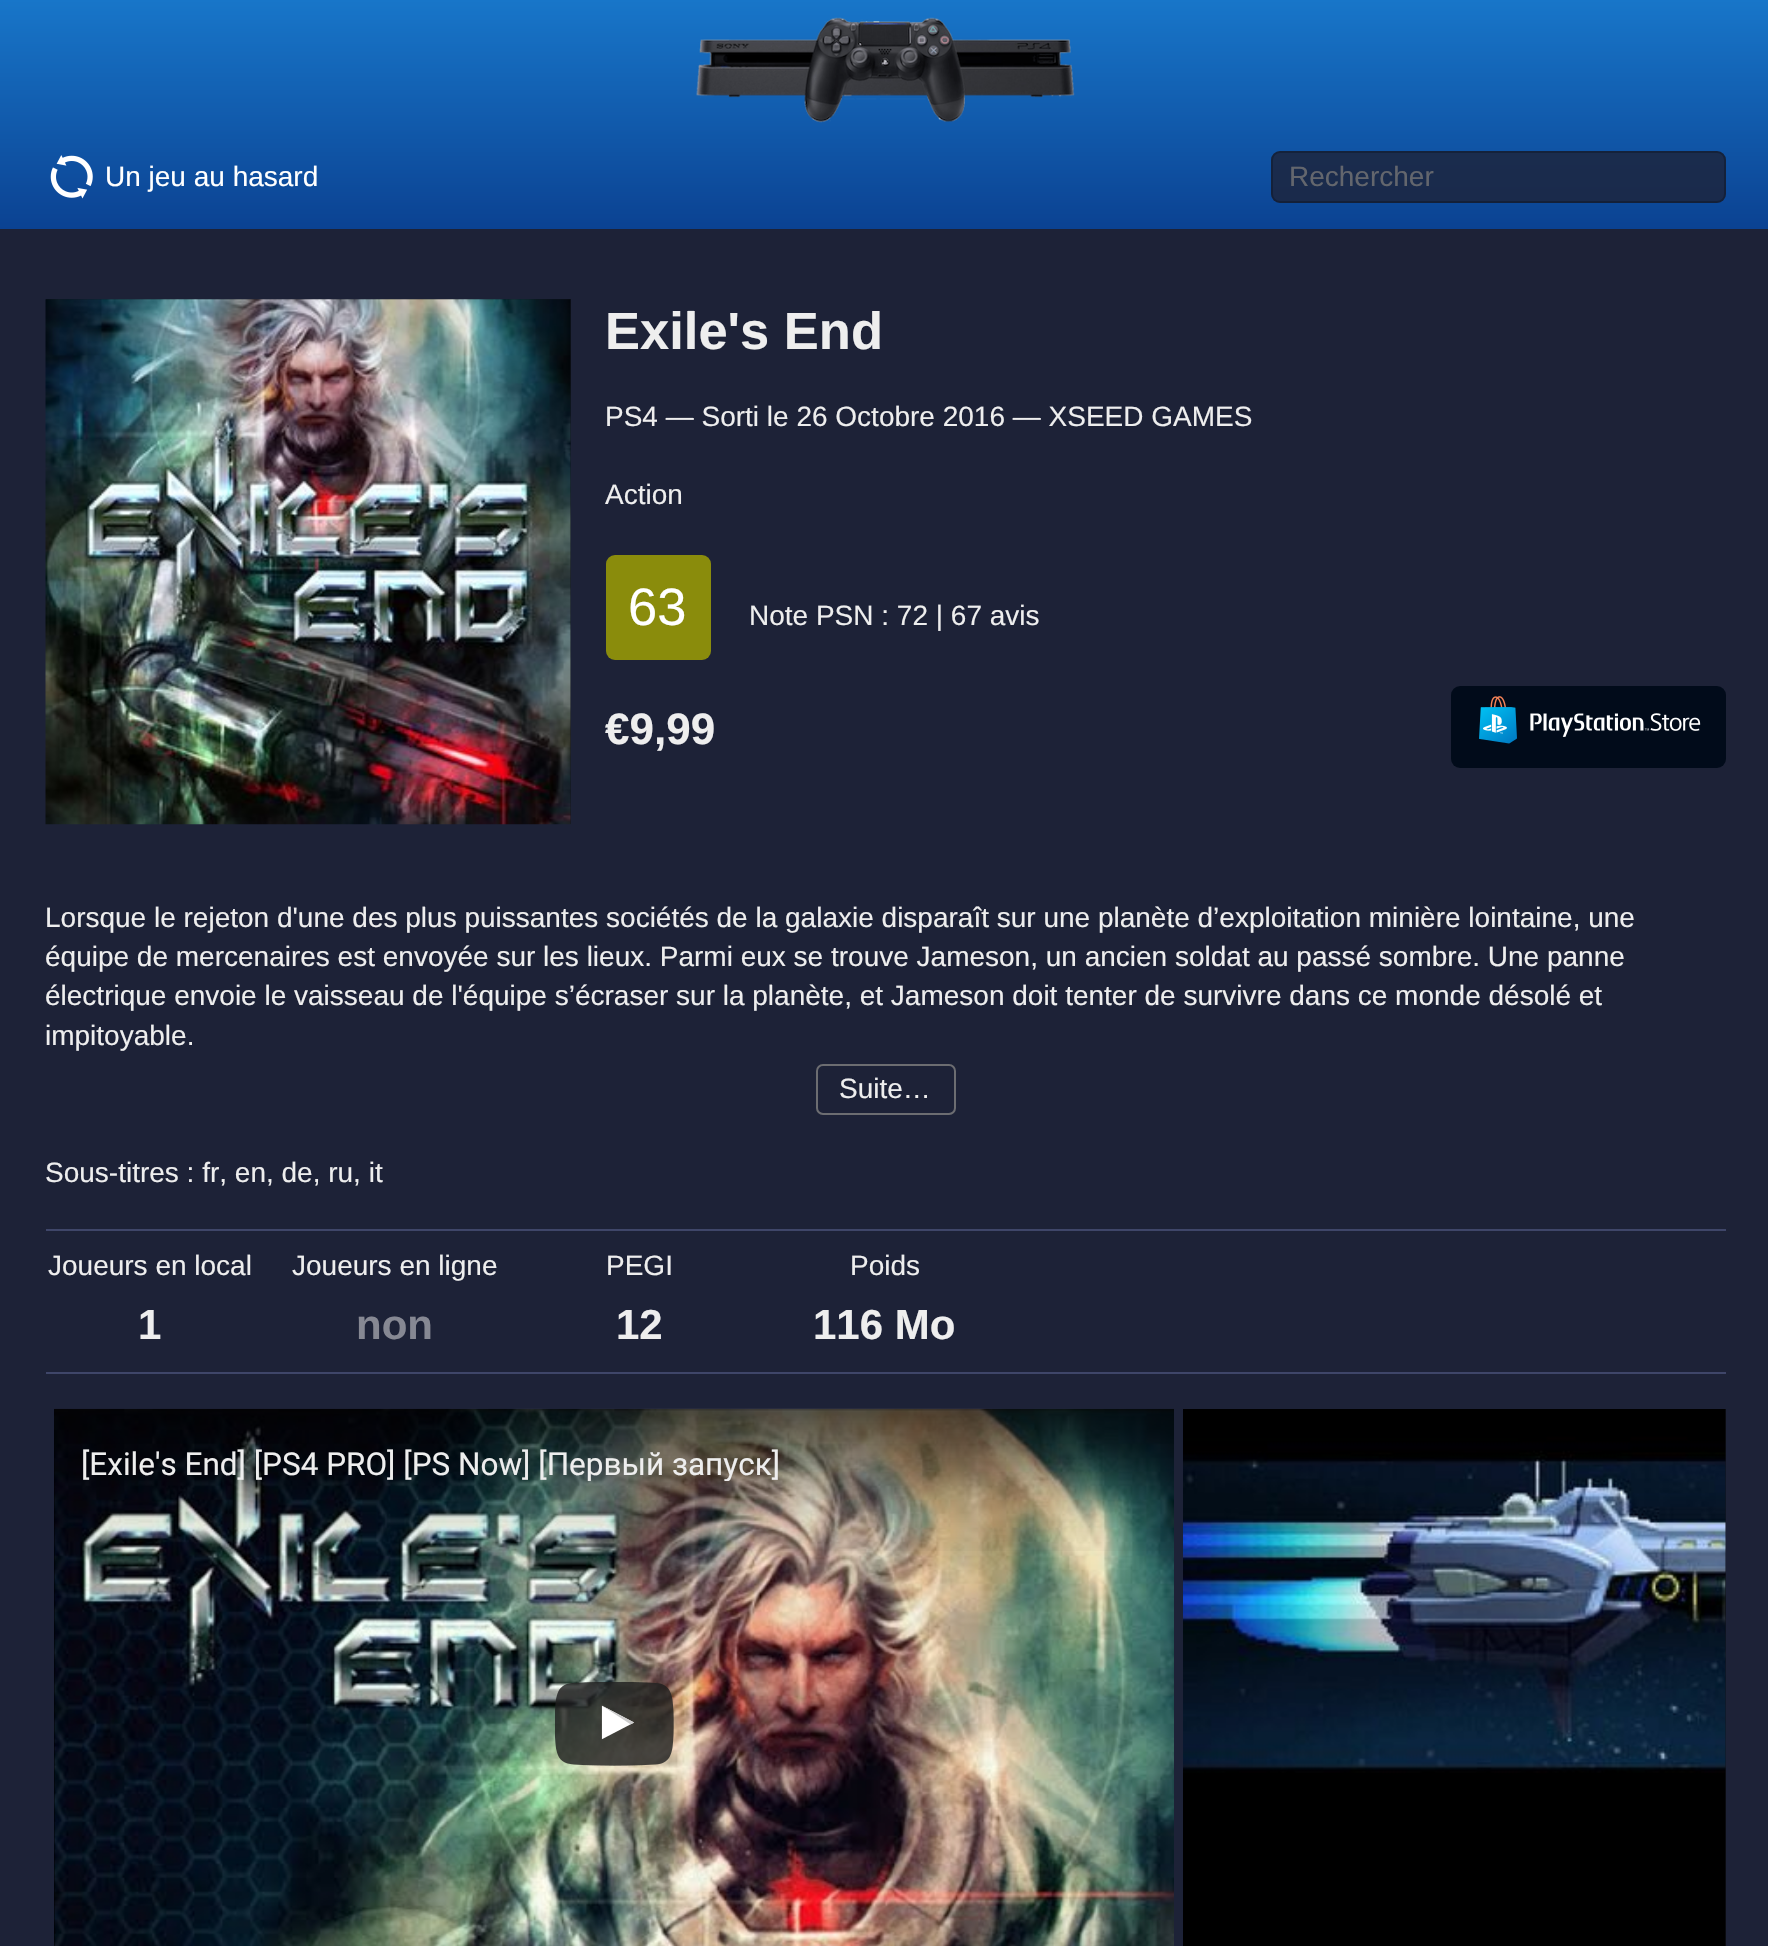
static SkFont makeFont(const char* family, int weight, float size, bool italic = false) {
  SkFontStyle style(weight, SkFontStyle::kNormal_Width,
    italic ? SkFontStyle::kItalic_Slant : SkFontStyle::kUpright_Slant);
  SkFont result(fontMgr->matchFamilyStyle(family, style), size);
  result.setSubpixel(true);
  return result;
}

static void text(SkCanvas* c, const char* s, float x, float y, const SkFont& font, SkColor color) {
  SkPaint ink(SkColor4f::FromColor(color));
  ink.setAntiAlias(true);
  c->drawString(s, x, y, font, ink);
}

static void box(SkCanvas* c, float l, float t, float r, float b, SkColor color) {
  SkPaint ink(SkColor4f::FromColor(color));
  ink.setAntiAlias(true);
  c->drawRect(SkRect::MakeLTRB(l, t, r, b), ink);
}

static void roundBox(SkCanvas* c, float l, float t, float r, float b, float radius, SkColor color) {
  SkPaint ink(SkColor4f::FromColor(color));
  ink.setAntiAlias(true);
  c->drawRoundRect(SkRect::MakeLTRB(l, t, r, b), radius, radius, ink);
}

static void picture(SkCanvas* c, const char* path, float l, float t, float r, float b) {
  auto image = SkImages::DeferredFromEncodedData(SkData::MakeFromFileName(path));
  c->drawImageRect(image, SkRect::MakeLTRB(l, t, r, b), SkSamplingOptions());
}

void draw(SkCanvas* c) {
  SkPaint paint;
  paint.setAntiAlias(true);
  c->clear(0xff1d2237);
  {
    const SkColor colors[] = {0xff1876c9, 0xff0b4292};
    const float stops[] = {0, 1};
    const SkPoint ends[] = {{885, 0}, {885, 229}};
    paint.setShader(SkGradientShader::MakeLinear(ends, colors, stops, 2, SkTileMode::kClamp));
    paint.setAlpha(255);
  }
  c->drawRect(SkRect::MakeLTRB(0, 0, 1768, 229), paint);
  picture(c, "img_01.png", 696, 17, 1075, 123);
  picture(c, "img_02.png", 50, 155, 93, 199);
  SkFont face1 = makeFont("Liberation Sans", 400, 28);
  text(c, "Un jeu au hasard", 105, 186, face1, 0xffffffff);
  roundBox(c, 1271, 151, 1726, 203, 9, 0xcc1d2237);
  paint.setStyle(SkPaint::kStroke_Style);
  paint.setStrokeWidth(2);
  paint.setShader(nullptr);
  paint.setColor(0x3d000000);
  c->drawRoundRect(SkRect::MakeLTRB(1272, 152, 1725, 202), 8, 8, paint);
  text(c, "Rechercher", 1289, 186, face1, 0xff63666d);
  box(c, 46, 299, 571, 824, 0xff13151f);
  picture(c, "img_03.png", 45, 299, 571, 825);
  SkFont face2 = makeFont("Liberation Sans", 700, 52.5f);
  text(c, "Exile's End", 605, 349, face2, 0xffeeeeee);
  text(c, "PS4 — Sorti le 26 Octobre 2016 — XSEED GAMES", 605, 426, face1, 0xffeeeeee);
  text(c, "Action", 605, 504, face1, 0xffeeeeee);
  roundBox(c, 606, 555, 711, 660, 9, 0xff8a8c0c);
  SkFont face3 = makeFont("Liberation Sans", 400, 52.5f);
  text(c, "63", 628, 625, face3, 0xffffffff);
  text(c, "Note PSN : 72 | 67 avis", 749, 625, face1, 0xffeeeeee);
  SkFont face4 = makeFont("Liberation Sans", 700, 44);
  text(c, "€9,99", 605, 744, face4, 0xffeeeeee);
  roundBox(c, 1451, 686, 1726, 768, 9, 0xff010b1a);
  picture(c, "img_04.png", 1479, 696, 1701, 744);
  text(c, "Lorsque le rejeton d'une des plus puissantes sociétés de la galaxie disparaît sur une planète d’exploitation minière lointaine, une", 45, 927, face1, 0xffeeeeee);
  c->save();
  c->clipRect(SkRect::MakeLTRB(46, 859, 1726, 1055));
  text(c, "équipe de mercenaires est envoyée sur les lieux. Parmi eux se trouve Jameson, un ancien soldat au passé sombre. Une panne", 45, 966, face1, 0xffeeeeee);
  text(c, "électrique envoie le vaisseau de l'équipe s’écraser sur la planète, et Jameson doit tenter de survivre dans ce monde désolé et", 45, 1005, face1, 0xffeeeeee);
  c->restore();
  text(c, "impitoyable.", 45, 1045, face1, 0xffeeeeee);
  paint.setColor(0xff6c6d71);
  c->drawRoundRect(SkRect::MakeLTRB(817, 1065, 955, 1114), 6, 6, paint);
  text(c, "Suite…", 839, 1098, face1, 0xffeeeeee);
  text(c, "Sous-titres : fr, en, de, ru, it", 45, 1182, face1, 0xffeeeeee);
  box(c, 46, 1229, 1726, 1231, 0xff3f4669);
  box(c, 46, 1372, 1726, 1374, 0xff3f4669);
  text(c, "Joueurs en local", 48, 1275, face1, 0xffeeeeee);
  SkFont face5 = makeFont("Liberation Sans", 700, 42);
  text(c, "1", 138, 1339, face5, 0xffeeeeee);
  text(c, "Joueurs en ligne", 292, 1275, face1, 0xffeeeeee);
  text(c, "non", 356, 1339, face5, 0xff868893);
  text(c, "PEGI", 606, 1275, face1, 0xffeeeeee);
  text(c, "12", 616, 1339, face5, 0xffeeeeee);
  text(c, "Poids", 850, 1275, face1, 0xffeeeeee);
  text(c, "116 Mo", 813, 1339, face5, 0xffeeeeee);
  box(c, 54, 1409, 55, 1946, 0xff000000);
  picture(c, "img_05.png", 54, 1408, 1174, 1946);
  picture(c, "img_06.png", 54, 1409, 1174, 1551);
  c->save();
  c->clipRect(SkRect::MakeLTRB(82, 1449, 781, 1481));
  SkFont face6 = makeFont("Roboto", 400, 31.5f);
  text(c, "[Exile's End] [PS4 PRO] [PS Now] [Первый запуск]", 81, 1475, face6, 0xffeeeeee);
  c->restore();
  picture(c, "img_07.png", 555, 1682, 674, 1766);
  box(c, 1725, 1409, 1726, 1946, 0xff13151f);
  picture(c, "img_08.png", 1183, 1409, 1726, 1946);
}
